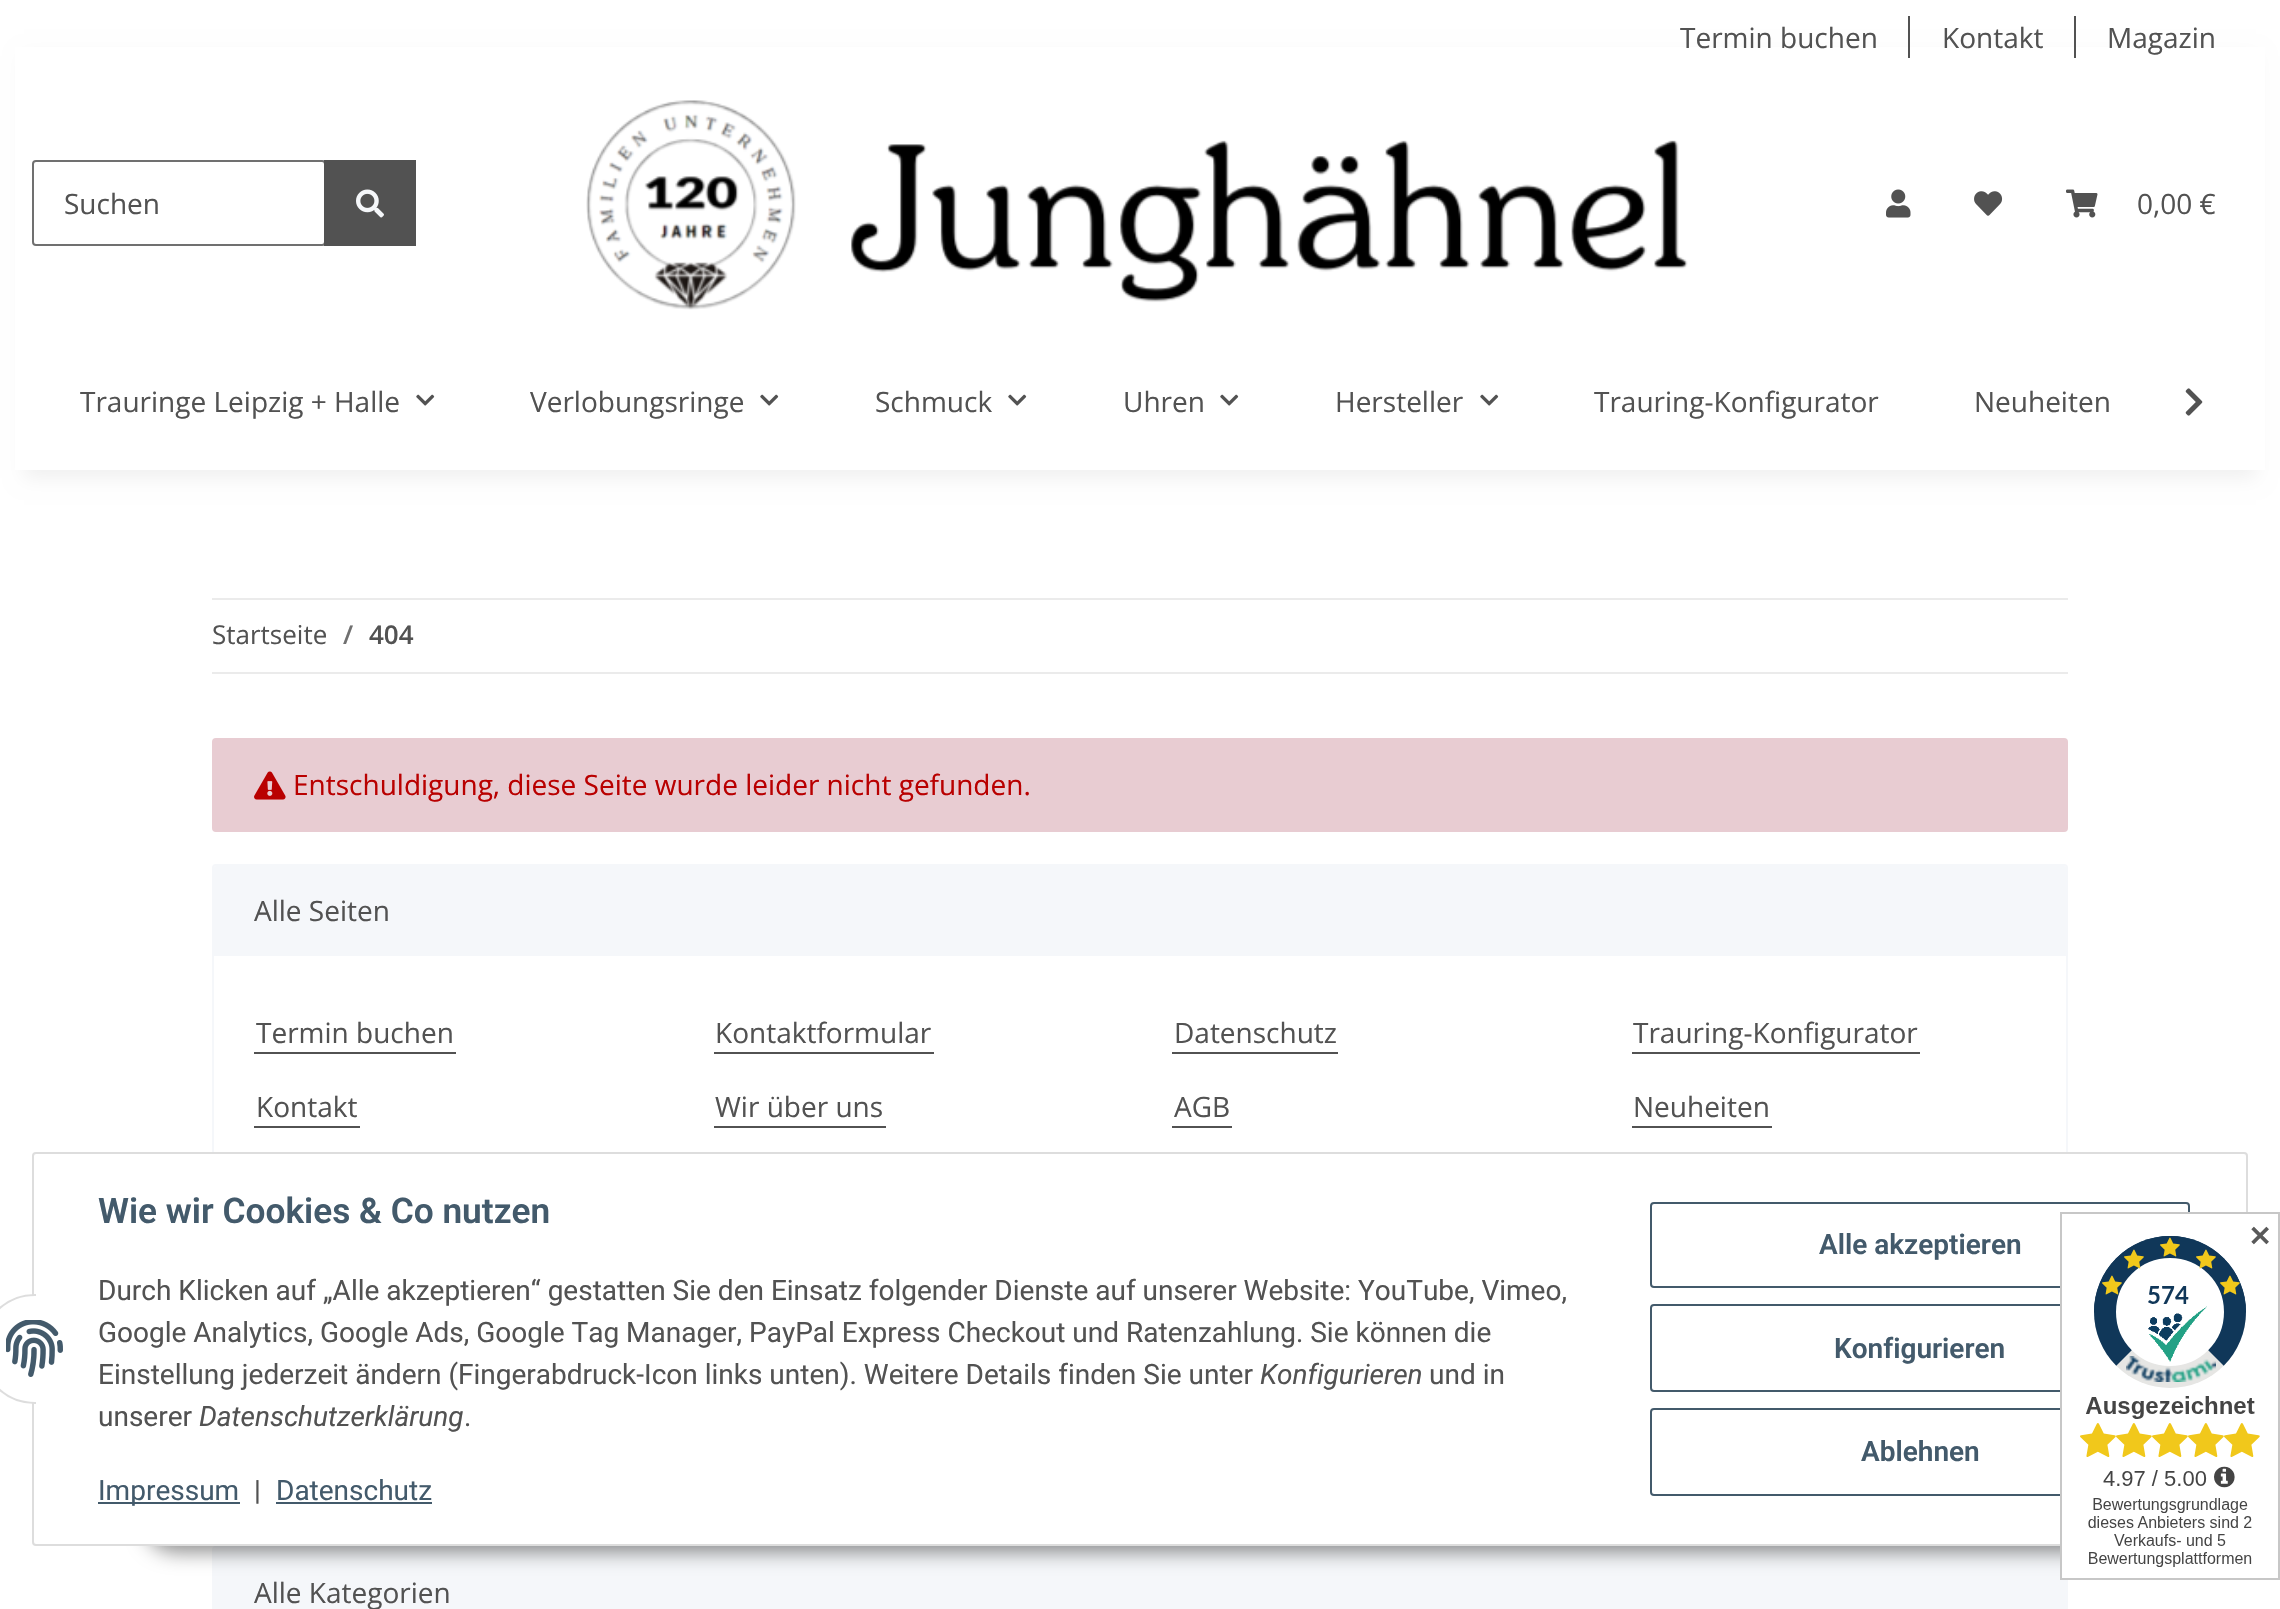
static SkFont makeFont(const char* family, int weight, float size, bool italic = false) {
  SkFontStyle style(weight, SkFontStyle::kNormal_Width,
    italic ? SkFontStyle::kItalic_Slant : SkFontStyle::kUpright_Slant);
  SkFont result(fontMgr->matchFamilyStyle(family, style), size);
  result.setSubpixel(true);
  return result;
}

static void text(SkCanvas* c, const char* s, float x, float y, const SkFont& font, SkColor color) {
  SkPaint ink(SkColor4f::FromColor(color));
  ink.setAntiAlias(true);
  c->drawString(s, x, y, font, ink);
}

static void box(SkCanvas* c, float l, float t, float r, float b, SkColor color) {
  SkPaint ink(SkColor4f::FromColor(color));
  ink.setAntiAlias(true);
  c->drawRect(SkRect::MakeLTRB(l, t, r, b), ink);
}

static void picture(SkCanvas* c, const char* path, float l, float t, float r, float b) {
  auto image = SkImages::DeferredFromEncodedData(SkData::MakeFromFileName(path));
  c->drawImageRect(image, SkRect::MakeLTRB(l, t, r, b), SkSamplingOptions());
}

void draw(SkCanvas* c) {
  SkPaint paint;
  paint.setAntiAlias(true);
  c->clear(0xffffffff);
  paint.setColor(0x0f000000);
  paint.setMaskFilter(SkMaskFilter::MakeBlur(kNormal_SkBlurStyle, 9));
  c->drawRect(SkRect::MakeLTRB(24, 56, 2256, 478), paint);
  paint.setMaskFilter(nullptr);
  box(c, 15, 47, 2265, 470, 0xffffffff);
  SkFont face1 = makeFont("Open Sans", 400, 28);
  text(c, "Termin buchen", 1680, 48, face1, 0xff525252);
  box(c, 1908, 16, 1910, 58, 0xff525252);
  text(c, "Kontakt", 1942, 48, face1, 0xff525252);
  box(c, 2074, 16, 2076, 58, 0xff525252);
  text(c, "Magazin", 2107, 48, face1, 0xff525252);
  paint.setStyle(SkPaint::kStroke_Style);
  paint.setStrokeWidth(2);
  paint.setColor(0xff707070);
  c->drawRoundRect(SkRect::MakeLTRB(33, 161, 325, 245), 3, 3, paint);
  text(c, "Suchen", 64, 214, face1, 0xff525252);
  box(c, 324, 160, 416, 246, 0xff525252);
  picture(c, "img_01.png", 356, 189, 384, 218);
  picture(c, "img_02.png", 586, 100, 1688, 310);
  picture(c, "img_03.png", 1886, 189, 1911, 218);
  picture(c, "img_04.png", 1974, 191, 2003, 216);
  picture(c, "img_05.png", 2066, 189, 2098, 218);
  text(c, "0,00 €", 2137, 214, face1, 0xff525252);
  text(c, "Trauringe Leipzig + Halle", 80, 412, face1, 0xff525252);
  picture(c, "img_06.png", 416, 394, 435, 406);
  text(c, "Verlobungsringe", 530, 412, face1, 0xff525252);
  picture(c, "img_06.png", 760, 394, 779, 406);
  text(c, "Schmuck", 875, 412, face1, 0xff525252);
  picture(c, "img_06.png", 1008, 394, 1027, 406);
  text(c, "Uhren", 1123, 412, face1, 0xff525252);
  picture(c, "img_06.png", 1220, 394, 1239, 406);
  text(c, "Hersteller", 1335, 412, face1, 0xff525252);
  picture(c, "img_06.png", 1480, 394, 1499, 406);
  text(c, "Trauring-Konfigurator", 1594, 412, face1, 0xff525252);
  text(c, "Neuheiten", 1974, 412, face1, 0xff525252);
  picture(c, "img_07.png", 2185, 388, 2203, 416);
  box(c, 212, 598, 2068, 600, 0xffebebeb);
  box(c, 212, 672, 2068, 674, 0xffebebeb);
  SkFont face2 = makeFont("Open Sans", 400, 26);
  text(c, "Startseite", 212, 644, face2, 0xff525252);
  SkFont face3 = makeFont("Open Sans", 600, 26);
  text(c, "/", 343, 644, face3, 0xff707070);
  text(c, "404", 369, 644, face3, 0xff525252);
  paint.setStyle(SkPaint::kFill_Style);
  paint.setColor(0xffe8ccd2);
  c->drawRoundRect(SkRect::MakeLTRB(213, 739, 2067, 831), 3, 3, paint);
  paint.setStyle(SkPaint::kStroke_Style);
  c->drawRoundRect(SkRect::MakeLTRB(213, 739, 2067, 831), 3, 3, paint);
  picture(c, "img_08.png", 254, 771, 286, 800);
  text(c, "Entschuldigung, diese Seite wurde leider nicht gefunden.", 293, 795, face1, 0xffb90000);
  paint.setColor(0xfff5f7fa);
  c->drawRoundRect(SkRect::MakeLTRB(213, 865, 2067, 1481), 3, 3, paint);
  paint.setStyle(SkPaint::kFill_Style);
  c->drawPath(SkPathBuilder().moveTo(216, 866).lineTo(2064, 866).cubicTo(2065, 866, 2066, 867, 2066, 868).lineTo(2066, 956).lineTo(214, 956).lineTo(214, 868).cubicTo(214, 867, 215, 866, 216, 866).close().detach(), paint);
  text(c, "Alle Seiten", 254, 921, face1, 0xff525252);
  text(c, "Termin buchen", 256, 1043, face1, 0xff525252);
  box(c, 254, 1052, 456, 1054, 0xff525252);
  text(c, "Kontakt", 256, 1117, face1, 0xff525252);
  box(c, 254, 1126, 360, 1128, 0xff525252);
  text(c, "Kontaktformular", 715, 1043, face1, 0xff525252);
  box(c, 714, 1052, 934, 1054, 0xff525252);
  text(c, "Wir über uns", 715, 1117, face1, 0xff525252);
  box(c, 714, 1126, 886, 1128, 0xff525252);
  text(c, "Datenschutz", 1174, 1043, face1, 0xff525252);
  box(c, 1172, 1052, 1338, 1054, 0xff525252);
  text(c, "AGB", 1174, 1117, face1, 0xff525252);
  box(c, 1172, 1126, 1232, 1128, 0xff525252);
  text(c, "Trauring-Konfigurator", 1633, 1043, face1, 0xff525252);
  box(c, 1632, 1052, 1920, 1054, 0xff525252);
  text(c, "Neuheiten", 1633, 1117, face1, 0xff525252);
  box(c, 1632, 1126, 1772, 1128, 0xff525252);
  paint.setStyle(SkPaint::kStroke_Style);
  c->drawRoundRect(SkRect::MakeLTRB(213, 1547, 2067, 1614), 3, 3, paint);
  paint.setStyle(SkPaint::kFill_Style);
  c->drawPath(SkPathBuilder().moveTo(216, 1548).lineTo(2064, 1548).cubicTo(2065, 1548, 2066, 1549, 2066, 1550).lineTo(2066, 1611).lineTo(214, 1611).lineTo(214, 1550).cubicTo(214, 1549, 215, 1548, 216, 1548).close().detach(), paint);
  text(c, "Alle Kategorien", 254, 1603, face1, 0xff525252);
  paint.setColor(0x73000000);
  paint.setMaskFilter(SkMaskFilter::MakeBlur(kNormal_SkBlurStyle, 10));
  c->drawRoundRect(SkRect::MakeLTRB(144, 1488, 2136, 1552), 32, 32, paint);
  paint.setMaskFilter(nullptr);
  paint.setColor(0xffffffff);
  c->drawRoundRect(SkRect::MakeLTRB(33, 1153, 2247, 1545), 3, 3, paint);
  paint.setStyle(SkPaint::kStroke_Style);
  paint.setColor(0xffdddddd);
  c->drawRoundRect(SkRect::MakeLTRB(33, 1153, 2247, 1545), 3, 3, paint);
  paint.setStyle(SkPaint::kFill_Style);
  paint.setColor(0xffffffff);
  c->drawCircle(35, 1349, 54, paint);
  paint.setStyle(SkPaint::kStroke_Style);
  paint.setColor(0xffdddddd);
  c->drawCircle(35, 1349, 54, paint);
  box(c, 36, 1294, 90, 1404, 0xffffffff);
  picture(c, "img_09.png", 6, 1320, 63, 1377);
  SkFont face4 = makeFont("Roboto", 600, 35.25f);
  text(c, "Wie wir Cookies & Co nutzen", 98, 1223, face4, 0xff435a6b);
  SkFont face5 = makeFont("Roboto", 400, 28);
  text(c, "Durch Klicken auf „Alle akzeptieren“ gestatten Sie den Einsatz folgender Dienste auf unserer Website: YouTube, Vimeo,", 98, 1300, face5, 0xff525252);
  text(c, "Google Analytics, Google Ads, Google Tag Manager, PayPal Express Checkout und Ratenzahlung. Sie können die", 98, 1342, face5, 0xff525252);
  text(c, "Einstellung jederzeit ändern (Fingerabdruck-Icon links unten). Weitere Details finden Sie unter", 98, 1384, face5, 0xff525252);
  SkFont face6 = makeFont("Roboto", 400, 28, true);
  text(c, "Konfigurieren", 1260, 1384, face6, 0xff525252);
  text(c, "und in", 1429, 1384, face5, 0xff525252);
  text(c, "unserer", 98, 1426, face5, 0xff525252);
  text(c, "Datenschutzerklärung", 199, 1426, face6, 0xff525252);
  text(c, ".", 464, 1426, face5, 0xff525252);
  box(c, 98, 1502, 240, 1504, 0xff435a6b);
  text(c, "Impressum", 98, 1500, face5, 0xff435a6b);
  text(c, "|", 254, 1500, face5, 0xff525252);
  text(c, "Datenschutz", 276, 1500, face5, 0xff435a6b);
  box(c, 276, 1502, 432, 1504, 0xff435a6b);
  paint.setColor(0xff435a6b);
  c->drawRoundRect(SkRect::MakeLTRB(1651, 1203, 2189, 1287), 3, 3, paint);
  SkFont face7 = makeFont("Roboto", 600, 28);
  text(c, "Alle akzeptieren", 1819, 1254, face7, 0xff435a6b);
  c->drawRoundRect(SkRect::MakeLTRB(1651, 1305, 2189, 1391), 3, 3, paint);
  text(c, "Konfigurieren", 1834, 1358, face7, 0xff435a6b);
  c->drawRoundRect(SkRect::MakeLTRB(1651, 1409, 2189, 1495), 3, 3, paint);
  text(c, "Ablehnen", 1861, 1461, face7, 0xff435a6b);
  picture(c, "img_10.png", 2060, 1212, 2280, 1580);
  SkFont face8 = makeFont("DejaVu Sans", 700, 28);
  text(c, "✕", 2248, 1246, face8, 0xff595959);
}
